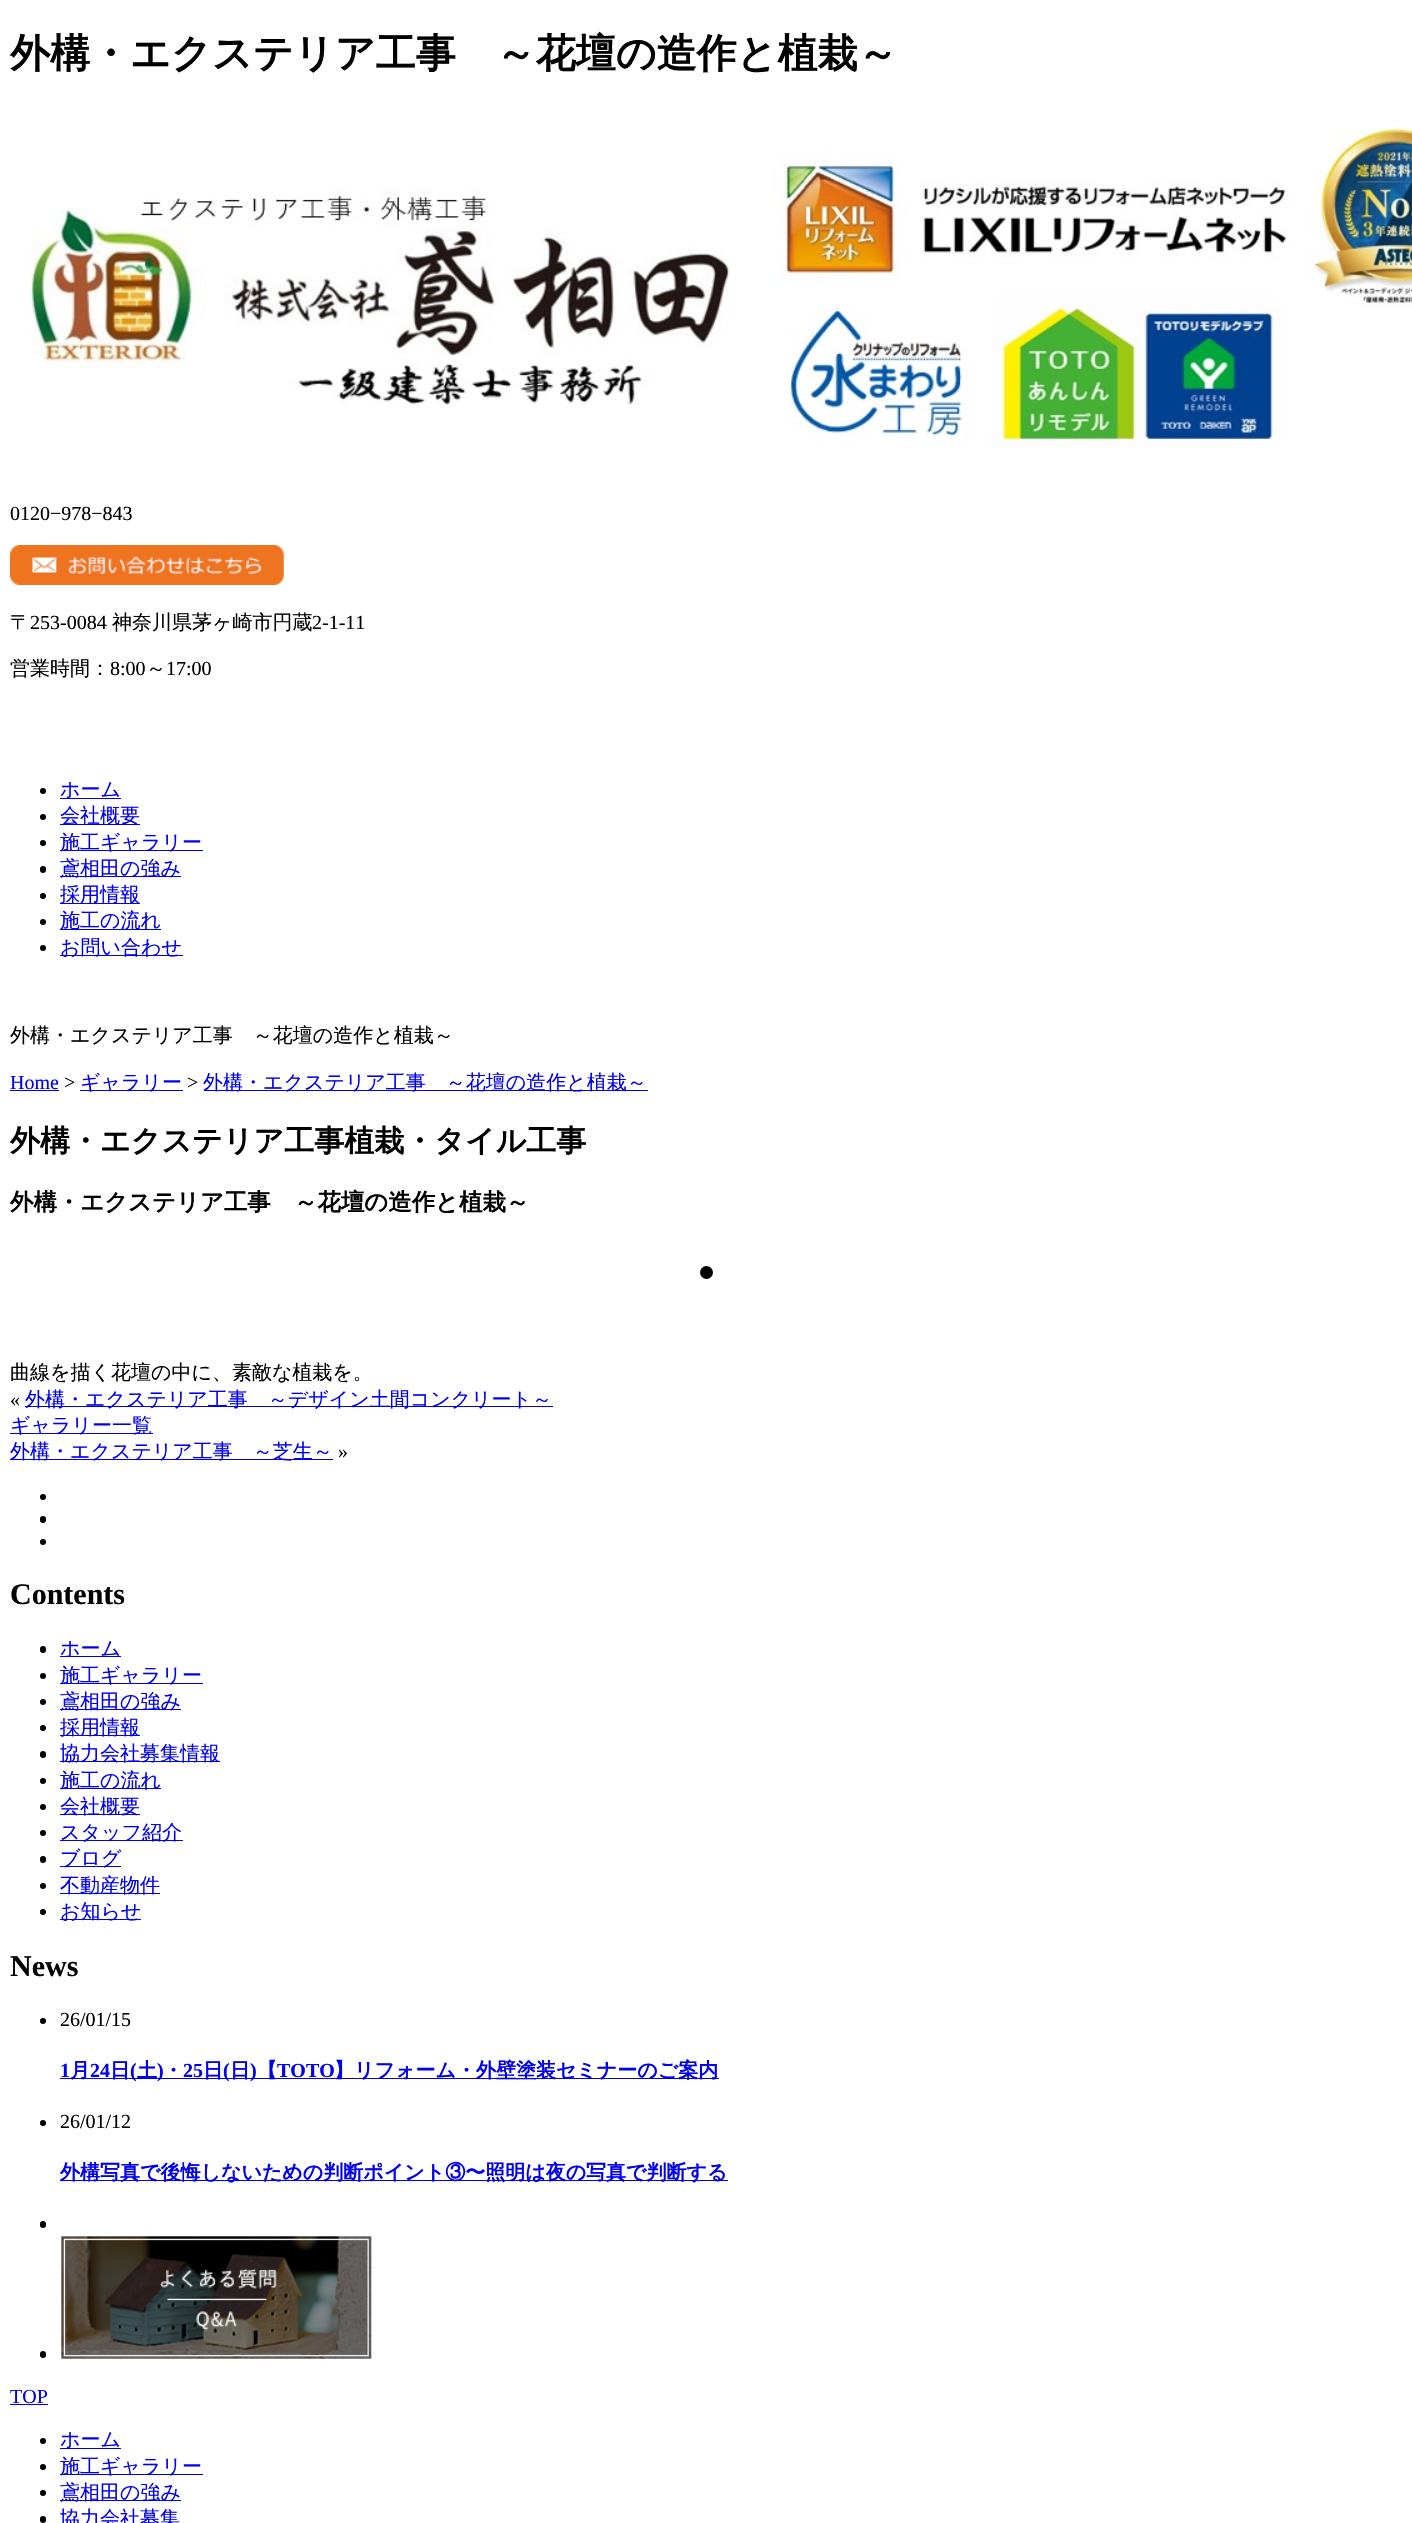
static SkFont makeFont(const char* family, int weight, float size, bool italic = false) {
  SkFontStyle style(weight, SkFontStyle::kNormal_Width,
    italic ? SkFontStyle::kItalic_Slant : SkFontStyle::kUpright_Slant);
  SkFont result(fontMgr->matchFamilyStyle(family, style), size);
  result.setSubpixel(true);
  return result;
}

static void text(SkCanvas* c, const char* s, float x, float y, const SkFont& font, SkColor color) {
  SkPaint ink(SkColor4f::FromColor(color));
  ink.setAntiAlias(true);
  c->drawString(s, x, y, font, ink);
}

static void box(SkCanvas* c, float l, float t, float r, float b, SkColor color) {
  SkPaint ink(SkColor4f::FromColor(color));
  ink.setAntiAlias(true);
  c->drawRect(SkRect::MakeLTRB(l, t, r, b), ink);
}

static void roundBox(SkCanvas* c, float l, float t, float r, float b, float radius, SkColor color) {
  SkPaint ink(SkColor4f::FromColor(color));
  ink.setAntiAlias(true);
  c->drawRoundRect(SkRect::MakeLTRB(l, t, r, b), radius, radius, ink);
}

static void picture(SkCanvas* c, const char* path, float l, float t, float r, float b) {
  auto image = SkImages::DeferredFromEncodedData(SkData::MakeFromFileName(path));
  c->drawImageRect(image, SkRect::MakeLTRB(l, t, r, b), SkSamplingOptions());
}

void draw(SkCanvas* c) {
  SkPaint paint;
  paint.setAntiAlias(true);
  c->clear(0xffffffff);
  SkFont face1 = makeFont("WenQuanYi Zen Hei", 700, 40);
  text(c, "外構・エクステリア工事　～花壇の造作と植栽～", 10, 67, face1, 0xff000000);
  picture(c, "img_01.png", 30, 127, 1412, 449);
  SkFont face2 = makeFont("Liberation Serif", 400, 20);
  text(c, "0120−978−843", 10, 520, face2, 0xff000000);
  picture(c, "img_02.png", 10, 545, 284, 585);
  SkFont face3 = makeFont("WenQuanYi Zen Hei", 500, 20);
  text(c, "〒", 10, 629, face3, 0xff000000);
  text(c, "253-0084", 30, 629, face2, 0xff000000);
  text(c, "神奈川県茅ヶ崎市円蔵", 112, 629, face3, 0xff000000);
  text(c, "2-1-11", 312, 629, face2, 0xff000000);
  text(c, "営業時間：", 10, 675, face3, 0xff000000);
  text(c, "8:00", 110, 675, face2, 0xff000000);
  text(c, "～", 146, 675, face3, 0xff000000);
  text(c, "17:00", 166, 675, face2, 0xff000000);
  paint.setColor(0xff000000);
  c->drawCircle(43, 791, 3, paint);
  box(c, 60, 798, 121, 799, 0xff0000ee);
  text(c, "ホーム", 60, 796, face3, 0xff0000ee);
  c->drawCircle(43, 817, 3, paint);
  box(c, 60, 824, 140, 825, 0xff0000ee);
  text(c, "会社概要", 60, 822, face3, 0xff0000ee);
  c->drawCircle(43, 843, 3, paint);
  box(c, 60, 850, 203, 851, 0xff0000ee);
  text(c, "施工ギャラリー", 60, 849, face3, 0xff0000ee);
  roundBox(c, 40, 866, 46, 873, 3, 0xff000000);
  box(c, 60, 876, 181, 877, 0xff0000ee);
  text(c, "鳶相田の強み", 60, 875, face3, 0xff0000ee);
  c->drawCircle(43, 896, 3, paint);
  box(c, 60, 903, 140, 904, 0xff0000ee);
  text(c, "採用情報", 60, 901, face3, 0xff0000ee);
  c->drawCircle(43, 922, 3, paint);
  box(c, 60, 929, 161, 930, 0xff0000ee);
  text(c, "施工の流れ", 60, 927, face3, 0xff0000ee);
  c->drawCircle(43, 948, 3, paint);
  box(c, 60, 955, 183, 956, 0xff0000ee);
  text(c, "お問い合わせ", 60, 954, face3, 0xff0000ee);
  text(c, "外構・エクステリア工事　～花壇の造作と植栽～", 10, 1042, face3, 0xff000000);
  text(c, "Home", 10, 1089, face2, 0xff0000ee);
  box(c, 10, 1090, 59, 1091, 0xff0000ee);
  text(c, ">", 64, 1089, face2, 0xff000000);
  box(c, 80, 1090, 183, 1091, 0xff0000ee);
  text(c, "ギャラリー", 80, 1089, face3, 0xff0000ee);
  text(c, ">", 187, 1089, face2, 0xff000000);
  box(c, 204, 1090, 648, 1091, 0xff0000ee);
  text(c, "外構・エクステリア工事　～花壇の造作と植栽～", 203, 1089, face3, 0xff0000ee);
  SkFont face4 = makeFont("WenQuanYi Zen Hei", 700, 30);
  text(c, "外構・エクステリア工事植栽・タイル工事", 10, 1151, face4, 0xff000000);
  SkFont face5 = makeFont("WenQuanYi Zen Hei", 700, 23.4f);
  text(c, "外構・エクステリア工事　～花壇の造作と植栽～", 10, 1210, face5, 0xff000000);
  c->drawCircle(706.5f, 1272.5f, 6.5f, paint);
  text(c, "曲線を描く花壇の中に、素敵な植栽を。", 10, 1379, face3, 0xff000000);
  text(c, "«", 10, 1406, face2, 0xff000000);
  box(c, 25, 1406, 553, 1407, 0xff0000ee);
  text(c, "外構・エクステリア工事　～デザイン土間コンクリート～", 25, 1406, face3, 0xff0000ee);
  box(c, 10, 1433, 153, 1434, 0xff0000ee);
  text(c, "ギャラリー一覧", 10, 1432, face3, 0xff0000ee);
  box(c, 10, 1459, 333, 1460, 0xff0000ee);
  text(c, "外構・エクステリア工事　～芝生～", 10, 1458, face3, 0xff0000ee);
  text(c, "»", 338, 1458, face2, 0xff000000);
  c->drawCircle(43, 1497, 3, paint);
  roundBox(c, 40, 1516, 46, 1523, 3, 0xff000000);
  c->drawCircle(43, 1542, 3, paint);
  SkFont face6 = makeFont("Liberation Serif", 700, 30);
  text(c, "Contents", 10, 1604, face6, 0xff000000);
  roundBox(c, 40, 1646, 46, 1653, 3, 0xff000000);
  box(c, 60, 1656, 121, 1657, 0xff0000ee);
  text(c, "ホーム", 60, 1655, face3, 0xff0000ee);
  c->drawCircle(43, 1676, 3, paint);
  box(c, 60, 1683, 203, 1684, 0xff0000ee);
  text(c, "施工ギャラリー", 60, 1682, face3, 0xff0000ee);
  c->drawCircle(43, 1702, 3, paint);
  box(c, 60, 1709, 181, 1710, 0xff0000ee);
  text(c, "鳶相田の強み", 60, 1708, face3, 0xff0000ee);
  c->drawCircle(43, 1728, 3, paint);
  box(c, 60, 1735, 140, 1736, 0xff0000ee);
  text(c, "採用情報", 60, 1734, face3, 0xff0000ee);
  roundBox(c, 40, 1751, 46, 1758, 3, 0xff000000);
  box(c, 60, 1761, 220, 1762, 0xff0000ee);
  text(c, "協力会社募集情報", 60, 1760, face3, 0xff0000ee);
  c->drawCircle(43, 1781, 3, paint);
  box(c, 60, 1788, 161, 1789, 0xff0000ee);
  text(c, "施工の流れ", 60, 1787, face3, 0xff0000ee);
  c->drawCircle(43, 1807, 3, paint);
  box(c, 60, 1814, 140, 1815, 0xff0000ee);
  text(c, "会社概要", 60, 1813, face3, 0xff0000ee);
  c->drawCircle(43, 1833, 3, paint);
  box(c, 60, 1840, 183, 1841, 0xff0000ee);
  text(c, "スタッフ紹介", 60, 1839, face3, 0xff0000ee);
  roundBox(c, 40, 1856, 46, 1863, 3, 0xff000000);
  box(c, 60, 1866, 121, 1867, 0xff0000ee);
  text(c, "ブログ", 60, 1865, face3, 0xff0000ee);
  c->drawCircle(43, 1886, 3, paint);
  box(c, 60, 1893, 160, 1894, 0xff0000ee);
  text(c, "不動産物件", 60, 1892, face3, 0xff0000ee);
  c->drawCircle(43, 1912, 3, paint);
  box(c, 60, 1919, 141, 1920, 0xff0000ee);
  text(c, "お知らせ", 60, 1918, face3, 0xff0000ee);
  text(c, "News", 10, 1976, face6, 0xff000000);
  c->drawCircle(43, 2021, 3, paint);
  text(c, "26/01/15", 60, 2026, face2, 0xff000000);
  SkFont face7 = makeFont("Liberation Serif", 700, 20);
  text(c, "1", 60, 2077, face7, 0xff0000ee);
  box(c, 60, 2078, 719, 2079, 0xff0000ee);
  SkFont face8 = makeFont("WenQuanYi Zen Hei", 700, 20);
  text(c, "月", 70, 2077, face8, 0xff0000ee);
  text(c, "24", 90, 2077, face7, 0xff0000ee);
  text(c, "日", 110, 2077, face8, 0xff0000ee);
  text(c, "(", 130, 2077, face7, 0xff0000ee);
  text(c, "土", 137, 2077, face8, 0xff0000ee);
  text(c, ")", 157, 2077, face7, 0xff0000ee);
  text(c, "・", 163, 2077, face8, 0xff0000ee);
  text(c, "25", 183, 2077, face7, 0xff0000ee);
  text(c, "日", 203, 2077, face8, 0xff0000ee);
  text(c, "(", 223, 2077, face7, 0xff0000ee);
  text(c, "日", 230, 2077, face8, 0xff0000ee);
  text(c, ")", 250, 2077, face7, 0xff0000ee);
  text(c, "【", 257, 2077, face8, 0xff0000ee);
  text(c, "TOTO", 277, 2077, face7, 0xff0000ee);
  text(c, "】リフォーム・外壁塗装セミナーのご案内", 334, 2077, face8, 0xff0000ee);
  c->drawCircle(43, 2123, 3, paint);
  text(c, "26/01/12", 60, 2128, face2, 0xff000000);
  box(c, 60, 2180, 728, 2181, 0xff0000ee);
  text(c, "外構写真で後悔しないための判断ポイント③〜照明は夜の写真で判断する", 60, 2179, face8, 0xff0000ee);
  roundBox(c, 40, 2221, 46, 2228, 3, 0xff000000);
  roundBox(c, 40, 2351, 46, 2358, 3, 0xff000000);
  picture(c, "img_03.png", 61, 2236, 372, 2359);
  text(c, "TOP", 10, 2403, face2, 0xff0000ee);
  box(c, 10, 2404, 48, 2405, 0xff0000ee);
  c->drawCircle(43, 2441, 3, paint);
  box(c, 60, 2448, 121, 2449, 0xff0000ee);
  text(c, "ホーム", 60, 2446, face3, 0xff0000ee);
  c->drawCircle(43, 2467, 3, paint);
  box(c, 60, 2474, 203, 2475, 0xff0000ee);
  text(c, "施工ギャラリー", 60, 2473, face3, 0xff0000ee);
  c->drawCircle(43, 2493, 3, paint);
  box(c, 60, 2500, 181, 2501, 0xff0000ee);
  text(c, "鳶相田の強み", 60, 2499, face3, 0xff0000ee);
  roundBox(c, 40, 2516, 46, 2523, 3, 0xff000000);
  text(c, "協力会社募集", 60, 2525, face3, 0xff0000ee);
}
